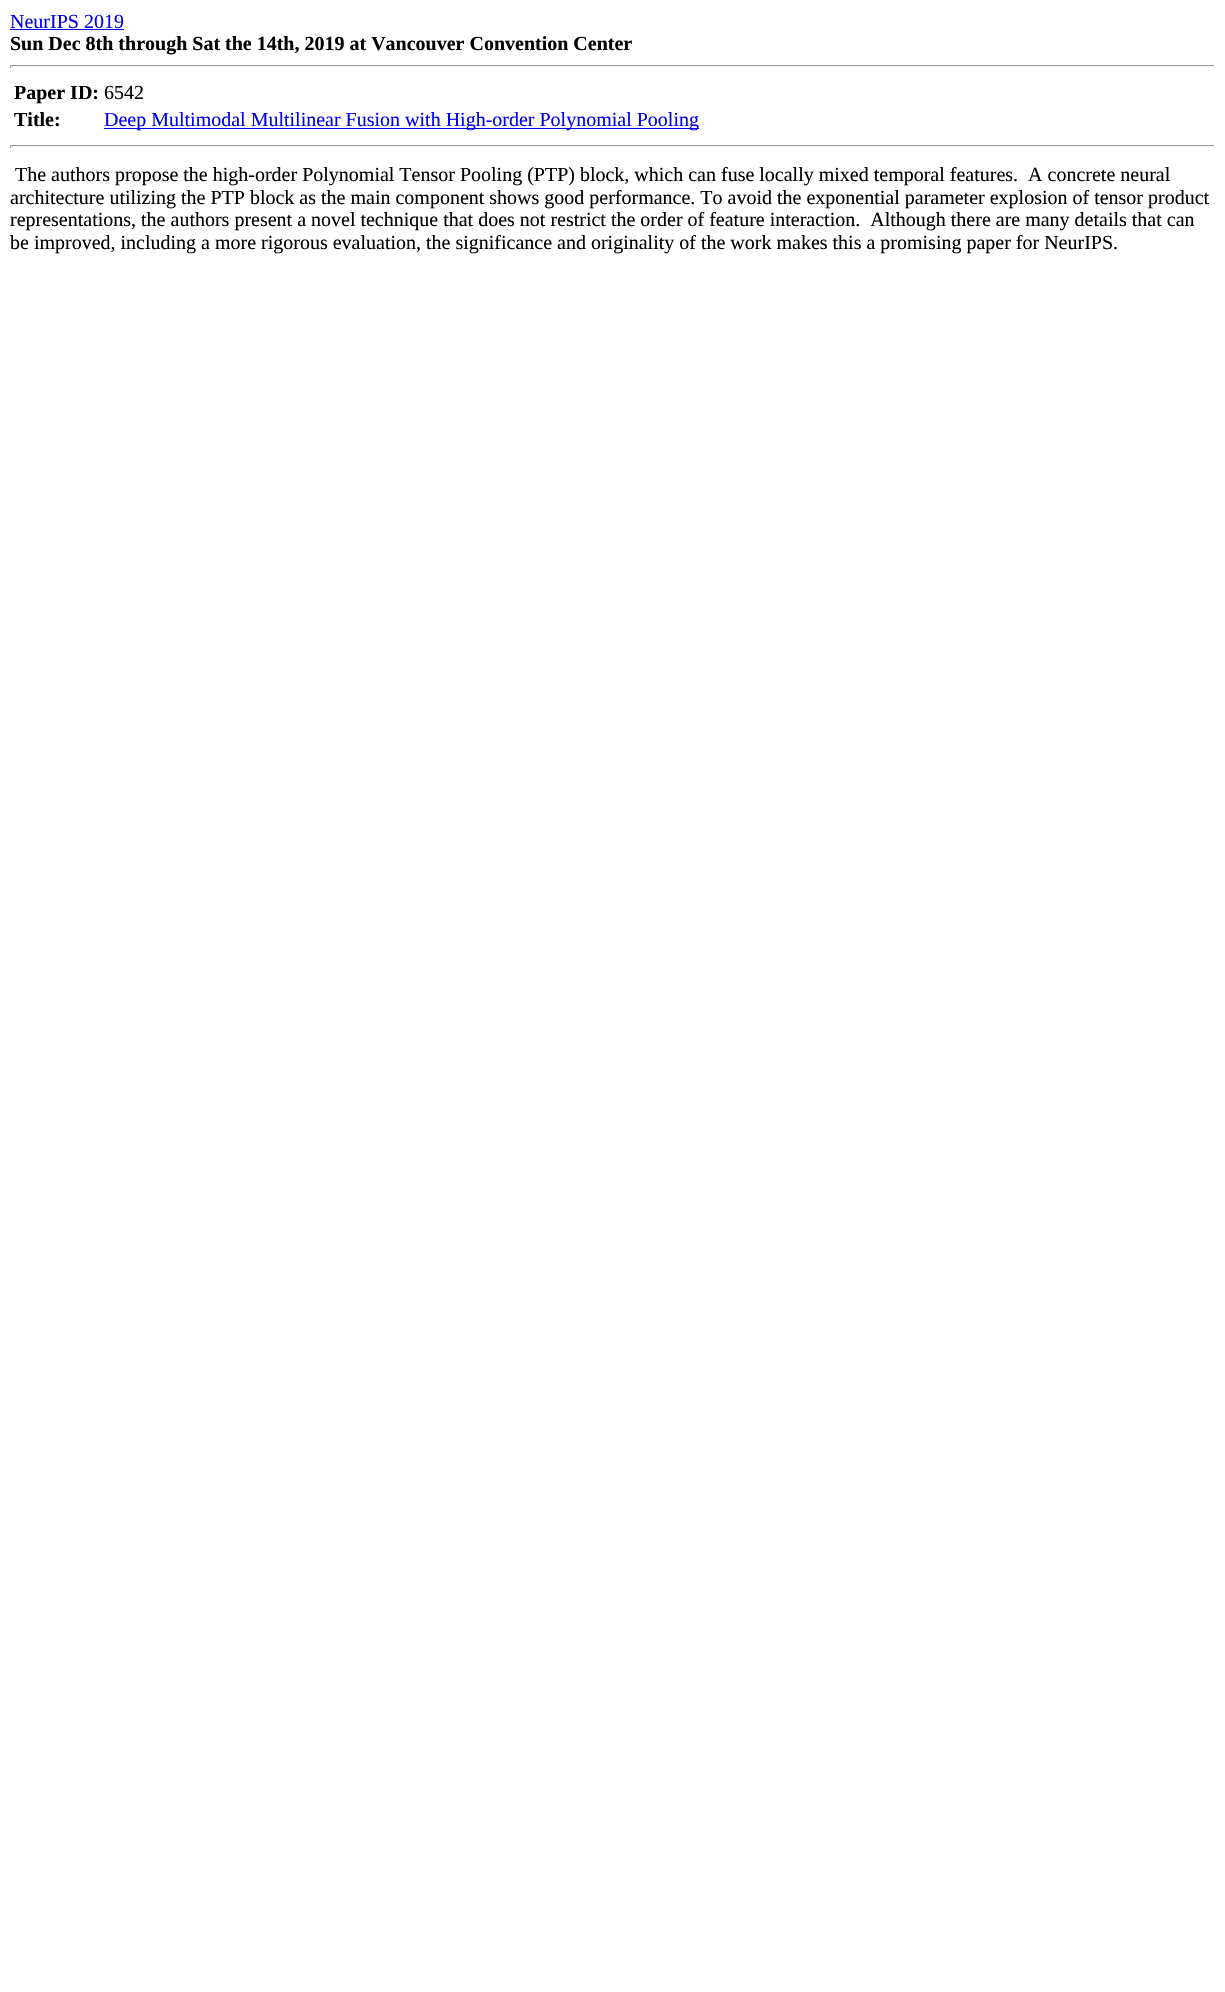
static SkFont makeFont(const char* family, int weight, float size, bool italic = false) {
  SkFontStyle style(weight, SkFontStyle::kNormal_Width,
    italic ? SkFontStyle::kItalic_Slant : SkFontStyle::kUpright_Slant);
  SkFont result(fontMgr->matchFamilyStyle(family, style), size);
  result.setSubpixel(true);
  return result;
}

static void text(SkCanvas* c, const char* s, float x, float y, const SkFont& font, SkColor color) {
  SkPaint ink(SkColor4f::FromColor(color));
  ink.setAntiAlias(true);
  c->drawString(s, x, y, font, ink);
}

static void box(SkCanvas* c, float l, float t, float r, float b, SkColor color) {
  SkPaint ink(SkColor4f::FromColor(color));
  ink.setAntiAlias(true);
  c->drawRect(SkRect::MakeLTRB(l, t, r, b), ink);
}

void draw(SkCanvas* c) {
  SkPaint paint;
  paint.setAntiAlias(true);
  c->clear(0xffffffff);
  SkFont face1 = makeFont("Liberation Serif", 400, 20);
  text(c, "NeurIPS 2019", 10, 28, face1, 0xff0000ee);
  box(c, 10, 29, 124, 30, 0xff0000ee);
  SkFont face2 = makeFont("Liberation Serif", 700, 20);
  text(c, "Sun Dec 8th through Sat the 14th, 2019 at Vancouver Convention Center", 10, 50, face2, 0xff000000);
  box(c, 10, 65, 1215, 66, 0xff9f9f9f);
  box(c, 1214, 65, 1215, 68, 0xffeeeeee);
  box(c, 10, 66, 1215, 67, 0xffeeeeee);
  box(c, 10, 65, 11, 68, 0xff9f9f9f);
  text(c, "Paper ID:", 14, 99, face2, 0xff000000);
  text(c, "6542", 104, 99, face1, 0xff000000);
  text(c, "Title:", 14, 126, face2, 0xff000000);
  box(c, 104, 128, 699, 129, 0xff0000ee);
  text(c, "Deep Multimodal Multilinear Fusion with High-order Polynomial Pooling", 104, 126, face1, 0xff0000ee);
  box(c, 10, 145, 1215, 146, 0xff9f9f9f);
  box(c, 1214, 145, 1215, 148, 0xffeeeeee);
  box(c, 10, 146, 1215, 147, 0xffeeeeee);
  box(c, 10, 145, 11, 148, 0xff9f9f9f);
  text(c, "The authors propose the high-order Polynomial Tensor Pooling (PTP) block, which can fuse locally mixed temporal features.  A concrete neural", 15, 181, face1, 0xff000000);
  text(c, "architecture utilizing the PTP block as the main component shows good performance. To avoid the exponential parameter explosion of tensor product", 10, 204, face1, 0xff000000);
  text(c, "representations, the authors present a novel technique that does not restrict the order of feature interaction.  Although there are many details that can", 10, 226, face1, 0xff000000);
  text(c, "be improved, including a more rigorous evaluation, the significance and originality of the work makes this a promising paper for NeurIPS.", 10, 249, face1, 0xff000000);
}
